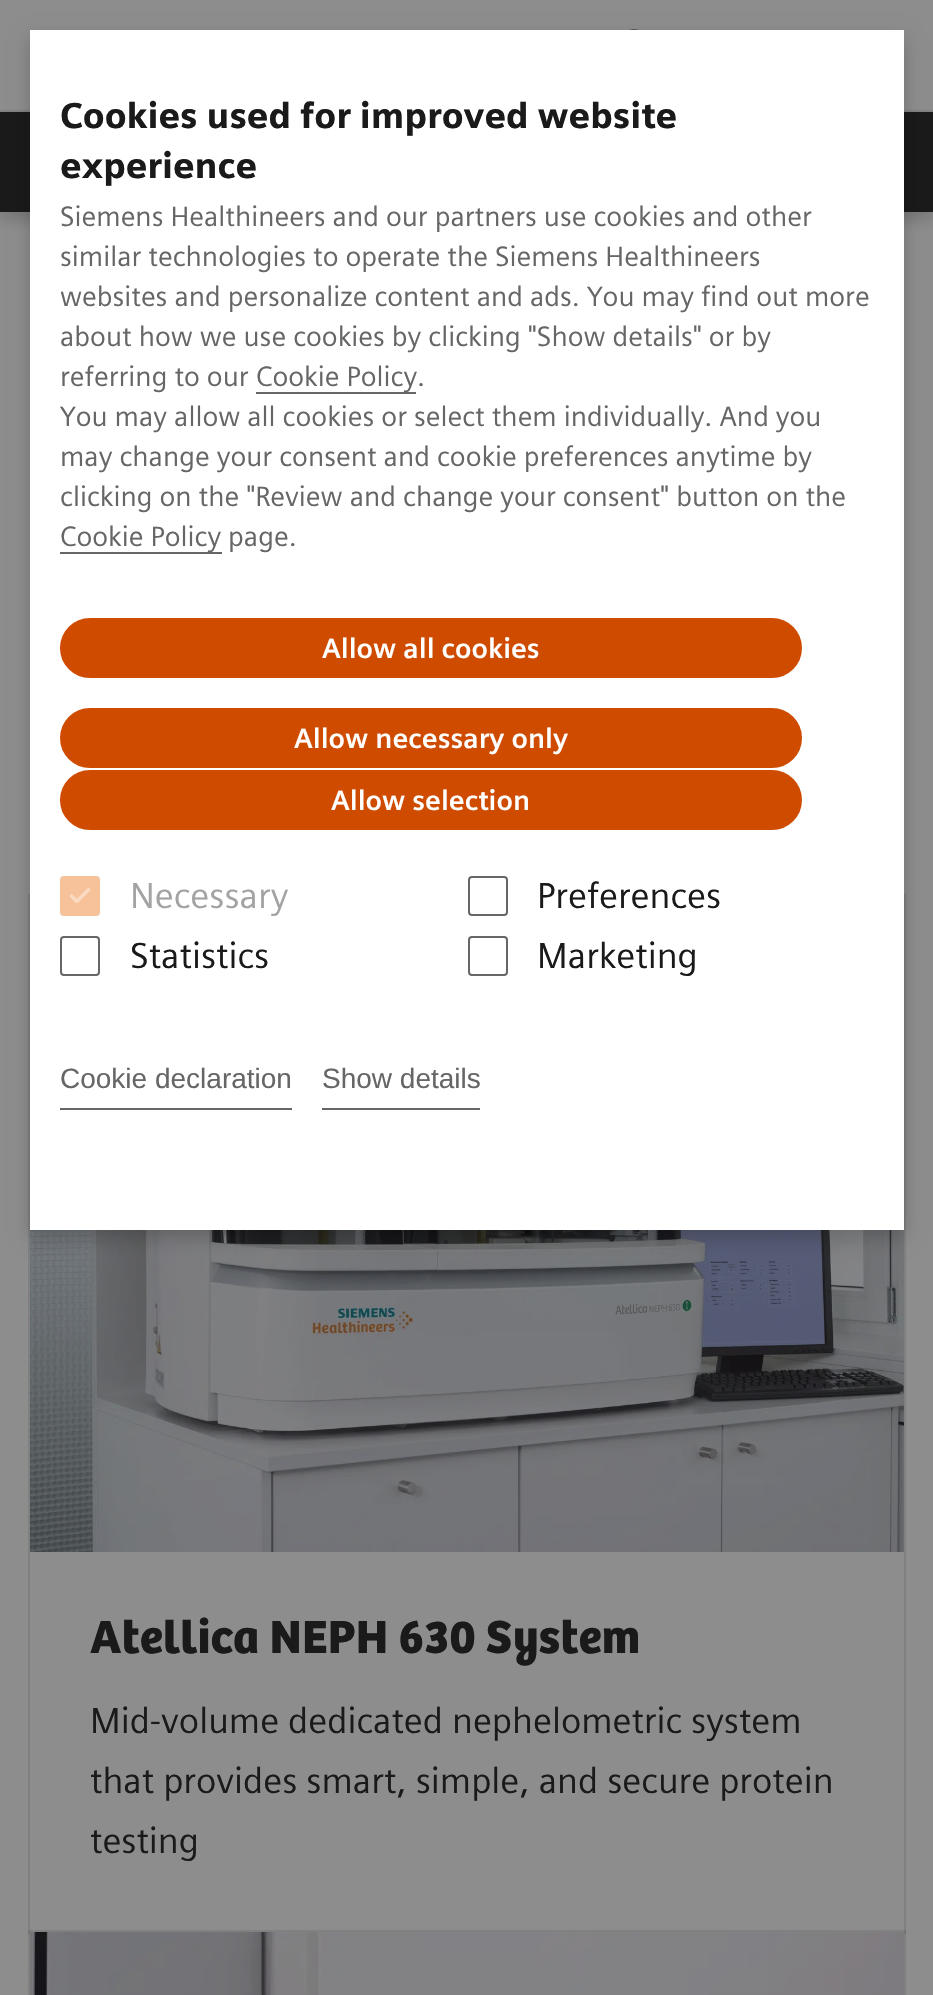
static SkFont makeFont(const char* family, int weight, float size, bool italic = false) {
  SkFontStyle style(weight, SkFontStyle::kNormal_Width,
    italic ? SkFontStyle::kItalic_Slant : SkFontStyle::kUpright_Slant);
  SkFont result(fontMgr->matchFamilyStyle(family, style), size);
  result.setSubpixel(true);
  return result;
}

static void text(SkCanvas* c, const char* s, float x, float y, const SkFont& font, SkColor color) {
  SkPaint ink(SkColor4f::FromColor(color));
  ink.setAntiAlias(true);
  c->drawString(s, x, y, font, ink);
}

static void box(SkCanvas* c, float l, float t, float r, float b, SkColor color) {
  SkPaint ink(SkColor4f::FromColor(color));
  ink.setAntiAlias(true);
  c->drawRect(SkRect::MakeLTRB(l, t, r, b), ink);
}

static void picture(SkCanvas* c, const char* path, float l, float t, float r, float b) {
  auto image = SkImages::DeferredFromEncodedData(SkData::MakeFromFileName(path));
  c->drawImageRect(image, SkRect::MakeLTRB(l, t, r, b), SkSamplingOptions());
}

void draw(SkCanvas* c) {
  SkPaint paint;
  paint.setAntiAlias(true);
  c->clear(0xff8d8d8d);
  box(c, 0, 110, 933, 112, 0xff848484);
  picture(c, "img_02.png", 629, 29, 639, 30);
  paint.setColor(0x331b1b1b);
  paint.setMaskFilter(SkMaskFilter::MakeBlur(kNormal_SkBlurStyle, 7));
  c->drawRect(SkRect::MakeLTRB(0, 120, 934, 220), paint);
  paint.setMaskFilter(nullptr);
  box(c, 0, 112, 933, 212, 0xff1a1a1a);
  paint.setStyle(SkPaint::kStroke_Style);
  paint.setStrokeWidth(2);
  paint.setColor(0xff808080);
  c->drawRect(SkRect::MakeLTRB(29, 895, 905, 1933), paint);
  picture(c, "img_03.png", 30, 1230, 904, 1552);
  paint.setStyle(SkPaint::kFill_Style);
  paint.setColor(0x33000000);
  paint.setMaskFilter(SkMaskFilter::MakeBlur(kNormal_SkBlurStyle, 9));
  c->drawRect(SkRect::MakeLTRB(30, 38, 904, 1238), paint);
  paint.setMaskFilter(nullptr);
  box(c, 30, 30, 904, 1230, 0xffffffff);
  SkFont face1 = makeFont("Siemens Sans", 900, 36);
  text(c, "Cookies used for improved website", 60, 128, face1, 0xff1a1a1a);
  text(c, "experience", 60, 178, face1, 0xff1a1a1a);
  SkFont face2 = makeFont("Siemens Sans", 400, 28);
  text(c, "Siemens Healthineers and our partners use cookies and other", 60, 226, face2, 0xff666666);
  text(c, "similar technologies to operate the Siemens Healthineers", 60, 266, face2, 0xff666666);
  text(c, "websites and personalize content and ads. You may find out more", 60, 306, face2, 0xff666666);
  text(c, "about how we use cookies by clicking \"Show details\" or by", 60, 346, face2, 0xff666666);
  text(c, "referring to our", 60, 386, face2, 0xff666666);
  box(c, 256, 392, 416, 394, 0xff666666);
  text(c, "Cookie Policy.", 256, 386, face2, 0xff666666);
  text(c, "You may allow all cookies or select them individually. And you", 60, 426, face2, 0xff666666);
  text(c, "may change your consent and cookie preferences anytime by", 60, 466, face2, 0xff666666);
  text(c, "clicking on the \"Review and change your consent\" button on the", 60, 506, face2, 0xff666666);
  box(c, 60, 552, 222, 554, 0xff666666);
  text(c, "Cookie Policy page.", 60, 546, face2, 0xff666666);
  paint.setColor(0xffcf4b00);
  c->drawRoundRect(SkRect::MakeLTRB(61, 619, 801, 677), 29, 29, paint);
  paint.setStyle(SkPaint::kStroke_Style);
  c->drawRoundRect(SkRect::MakeLTRB(61, 619, 801, 677), 29, 29, paint);
  SkFont face3 = makeFont("Siemens Sans", 700, 28);
  text(c, "Allow all cookies", 322, 658, face3, 0xffffffff);
  paint.setStyle(SkPaint::kFill_Style);
  c->drawRoundRect(SkRect::MakeLTRB(61, 709, 801, 767), 29, 29, paint);
  paint.setStyle(SkPaint::kStroke_Style);
  c->drawRoundRect(SkRect::MakeLTRB(61, 709, 801, 767), 29, 29, paint);
  text(c, "Allow necessary only", 294, 748, face3, 0xffffffff);
  paint.setStyle(SkPaint::kFill_Style);
  c->drawRoundRect(SkRect::MakeLTRB(61, 771, 801, 829), 29, 29, paint);
  paint.setStyle(SkPaint::kStroke_Style);
  c->drawRoundRect(SkRect::MakeLTRB(61, 771, 801, 829), 29, 29, paint);
  text(c, "Allow selection", 331, 810, face3, 0xffffffff);
  paint.setStyle(SkPaint::kFill_Style);
  paint.setColor(0xfff7c29a);
  c->drawRoundRect(SkRect::MakeLTRB(61, 877, 99, 915), 3, 3, paint);
  paint.setStyle(SkPaint::kStroke_Style);
  c->drawRoundRect(SkRect::MakeLTRB(61, 877, 99, 915), 3, 3, paint);
  picture(c, "img_01.png", 69, 887, 91, 903);
  SkFont face4 = makeFont("Siemens Sans", 400, 36);
  text(c, "Necessary", 130, 908, face4, 0xffa3a3a3);
  paint.setColor(0xff666666);
  c->drawRoundRect(SkRect::MakeLTRB(469, 877, 507, 915), 3, 3, paint);
  text(c, "Preferences", 537, 908, face4, 0xff1a1a1a);
  c->drawRoundRect(SkRect::MakeLTRB(61, 937, 99, 975), 3, 3, paint);
  text(c, "Statistics", 130, 968, face4, 0xff1a1a1a);
  c->drawRoundRect(SkRect::MakeLTRB(469, 937, 507, 975), 3, 3, paint);
  text(c, "Marketing", 537, 968, face4, 0xff1a1a1a);
  box(c, 60, 1108, 292, 1110, 0xff666666);
  SkFont face5 = makeFont("Liberation Sans", 400, 28);
  text(c, "Cookie declaration", 60, 1088, face5, 0xff666666);
  box(c, 322, 1108, 480, 1110, 0xff666666);
  text(c, "Show details", 322, 1088, face5, 0xff666666);
  SkFont face6 = makeFont("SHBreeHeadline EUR", 700, 48);
  text(c, "Atellica NEPH 630 System", 90, 1653, face6, 0xff1a1a1a);
  text(c, "Mid-volume dedicated nephelometric system", 90, 1733, face4, 0xff1a1a1a);
  text(c, "that provides smart, simple, and secure protein", 90, 1793, face4, 0xff1a1a1a);
  text(c, "testing", 90, 1853, face4, 0xff1a1a1a);
  paint.setColor(0x1a0d0d0d);
  c->drawRect(SkRect::MakeLTRB(29, 1931, 905, 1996), paint);
  picture(c, "img_04.png", 30, 1932, 904, 1995);
  paint.setStyle(SkPaint::kFill_Style);
  paint.setColor(0xff8d8d8d);
  c->drawPath(SkPathBuilder().moveTo(875.5f, 1927).lineTo(872.5f, 1930.5f).lineTo(860, 1918).lineTo(847.5f, 1930.5f).lineTo(844.5f, 1927).lineTo(860, 1911.5f).close().detach(), paint);
}
